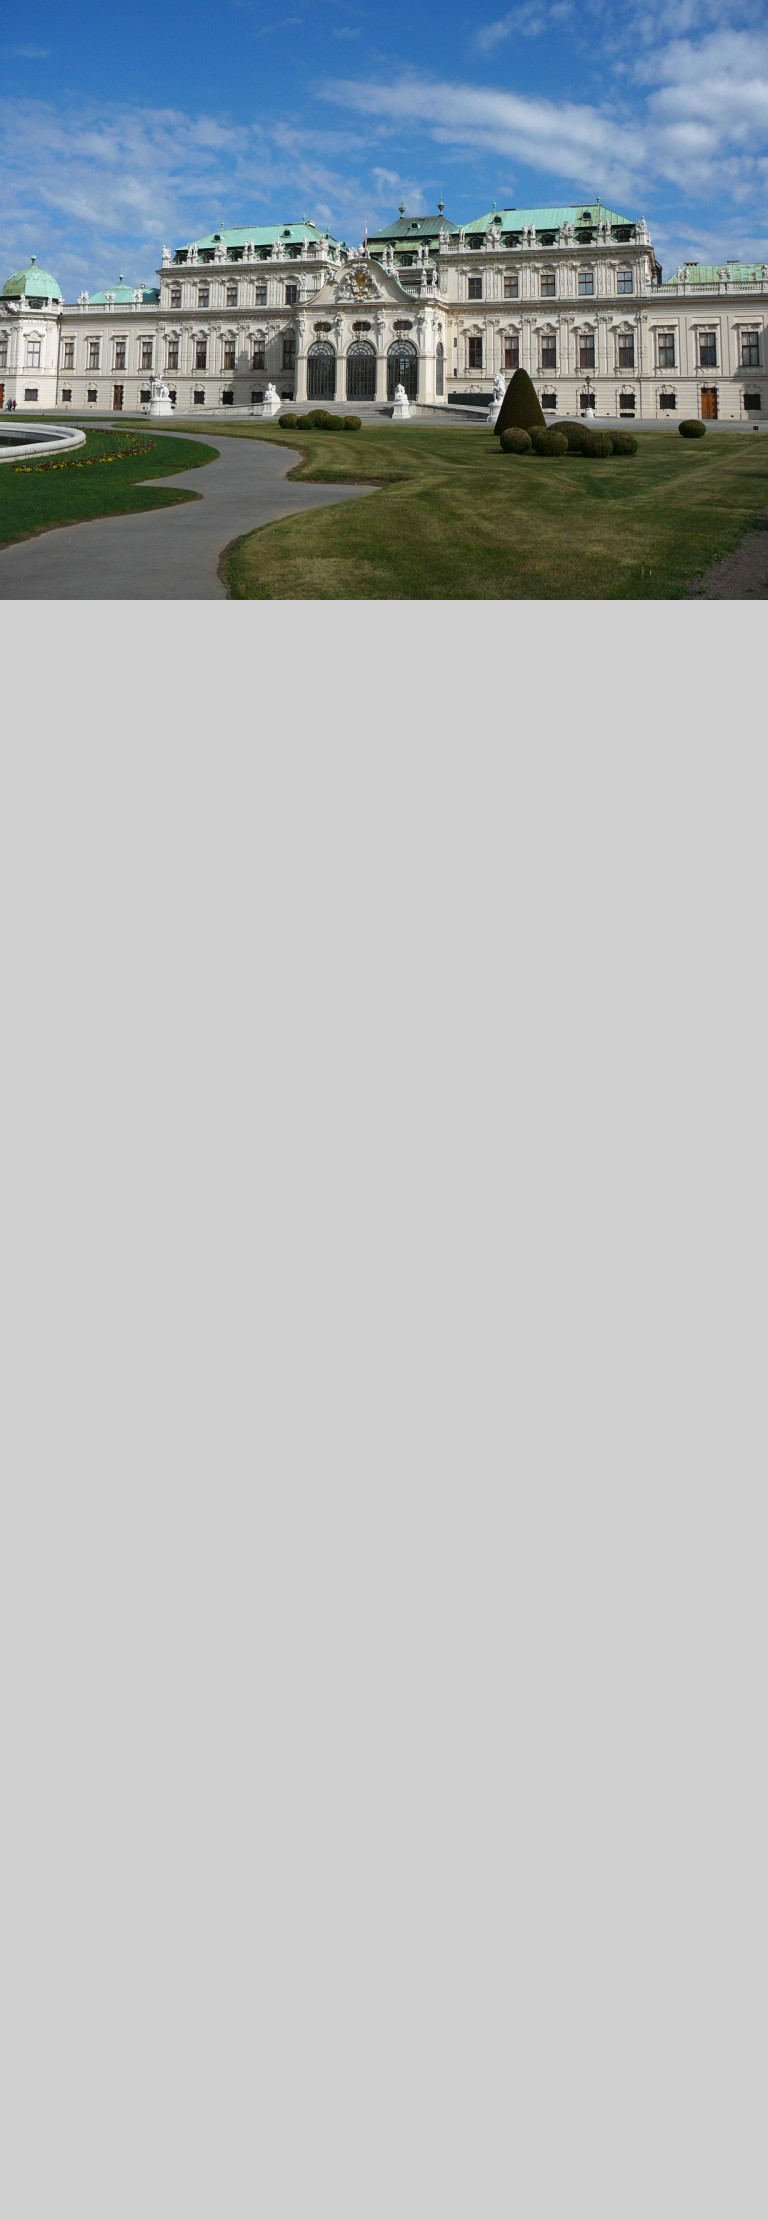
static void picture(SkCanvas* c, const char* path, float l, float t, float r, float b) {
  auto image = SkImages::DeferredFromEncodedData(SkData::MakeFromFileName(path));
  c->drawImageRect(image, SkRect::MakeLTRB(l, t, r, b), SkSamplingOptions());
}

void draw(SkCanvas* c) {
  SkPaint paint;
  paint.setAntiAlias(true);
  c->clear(0xffd0d0d0);
  picture(c, "img_01.png", 0, 0, 768, 600);
}
